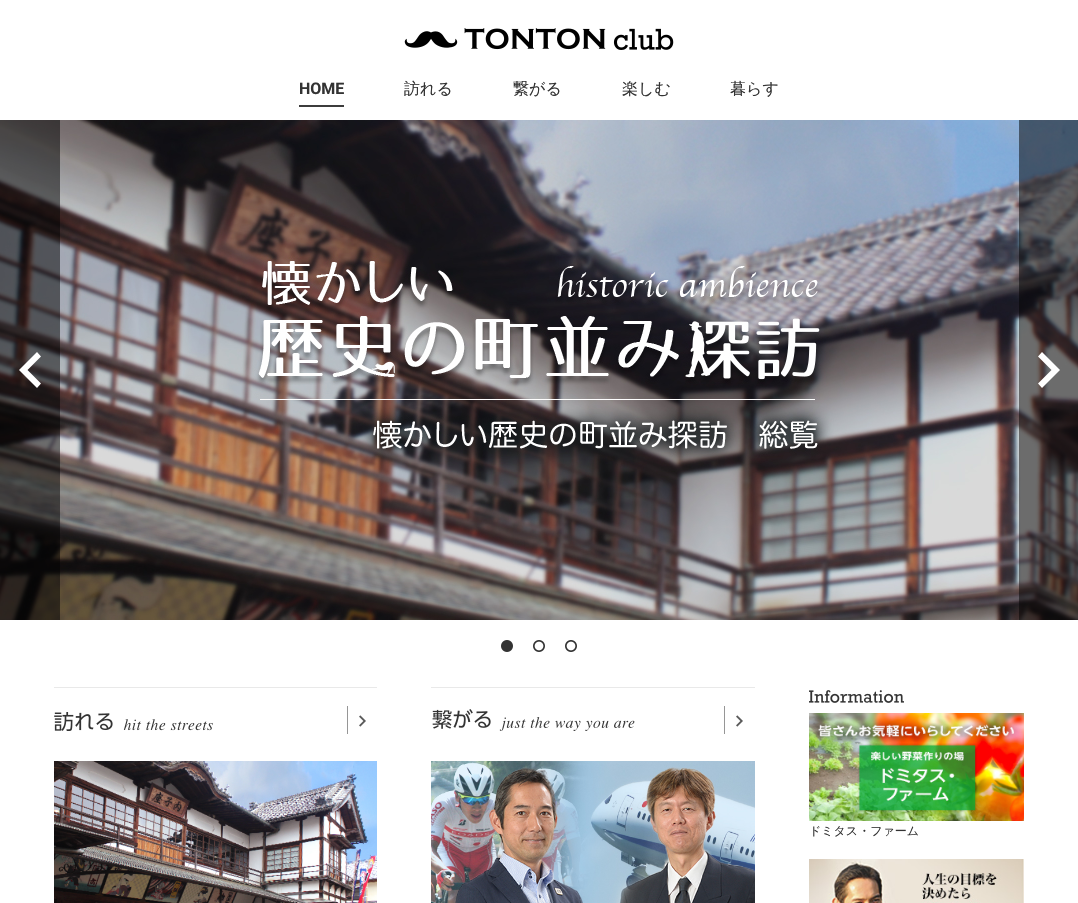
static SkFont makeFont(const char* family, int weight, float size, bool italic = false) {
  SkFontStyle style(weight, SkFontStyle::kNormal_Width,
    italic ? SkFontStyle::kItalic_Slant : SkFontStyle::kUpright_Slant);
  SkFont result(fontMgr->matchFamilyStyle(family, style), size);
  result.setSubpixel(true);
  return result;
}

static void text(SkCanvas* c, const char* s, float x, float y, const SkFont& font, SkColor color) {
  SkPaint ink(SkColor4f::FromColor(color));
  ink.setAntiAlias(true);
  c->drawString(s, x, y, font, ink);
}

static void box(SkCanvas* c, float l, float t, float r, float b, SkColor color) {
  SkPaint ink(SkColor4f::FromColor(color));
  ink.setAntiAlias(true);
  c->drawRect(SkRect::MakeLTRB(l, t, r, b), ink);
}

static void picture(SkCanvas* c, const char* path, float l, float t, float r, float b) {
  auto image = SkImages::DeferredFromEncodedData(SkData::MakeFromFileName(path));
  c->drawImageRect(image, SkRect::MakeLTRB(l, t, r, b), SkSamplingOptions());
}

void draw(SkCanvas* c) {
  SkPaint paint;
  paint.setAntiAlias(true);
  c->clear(0xffffffff);
  picture(c, "img_01.png", 404, 28, 674, 50);
  SkFont face1 = makeFont("Roboto", 700, 16);
  text(c, "HOME", 299, 94, face1, 0xff333333);
  box(c, 299, 105, 344, 107, 0xff3c3c3c);
  SkFont face2 = makeFont("WenQuanYi Zen Hei", 500, 16);
  text(c, "訪れる", 404, 94, face2, 0xff333333);
  text(c, "繋がる", 513, 94, face2, 0xff333333);
  text(c, "楽しむ", 622, 94, face2, 0xff333333);
  text(c, "暮らす", 730, 94, face2, 0xff333333);
  picture(c, "img_02.png", 0, 120, 1078, 620);
  box(c, 0, 120, 60, 620, 0x80000000);
  paint.setColor(0xffffffff);
  c->drawPath(SkPathBuilder().moveTo(19, 370).lineTo(37, 388).lineTo(41, 383.5f).lineTo(27.5f, 370).lineTo(41, 356.5f).lineTo(37, 352).close().detach(), paint);
  box(c, 1019, 120, 1078, 620, 0x80000000);
  c->drawPath(SkPathBuilder().moveTo(1042, 352).lineTo(1038, 356.5f).lineTo(1051.5f, 370).lineTo(1038, 383.5f).lineTo(1042, 388).lineTo(1060, 370).close().detach(), paint);
  picture(c, "img_03.png", 501, 640, 513, 652);
  picture(c, "img_04.png", 533, 640, 545, 652);
  picture(c, "img_04.png", 565, 640, 577, 652);
  box(c, 54, 687, 377, 688, 0xffe9e9e9);
  picture(c, "img_05.png", 54, 712, 213, 731);
  box(c, 347, 706, 348, 734, 0xff969696);
  picture(c, "img_06.png", 359, 715, 366, 727);
  picture(c, "img_07.png", 54, 761, 377, 903);
  box(c, 431, 687, 755, 688, 0xffe9e9e9);
  picture(c, "img_08.png", 432, 709, 635, 731);
  box(c, 724, 706, 725, 734, 0xff969696);
  picture(c, "img_06.png", 736, 715, 743, 727);
  picture(c, "img_09.png", 431, 761, 755, 903);
  picture(c, "img_10.png", 809, 690, 904, 703);
  picture(c, "img_11.png", 809, 713, 1024, 821);
  SkFont face3 = makeFont("WenQuanYi Zen Hei", 500, 12);
  text(c, "ドミタス・ファーム", 809, 835, face3, 0xff333333);
  picture(c, "img_12.png", 809, 859, 1024, 903);
}
